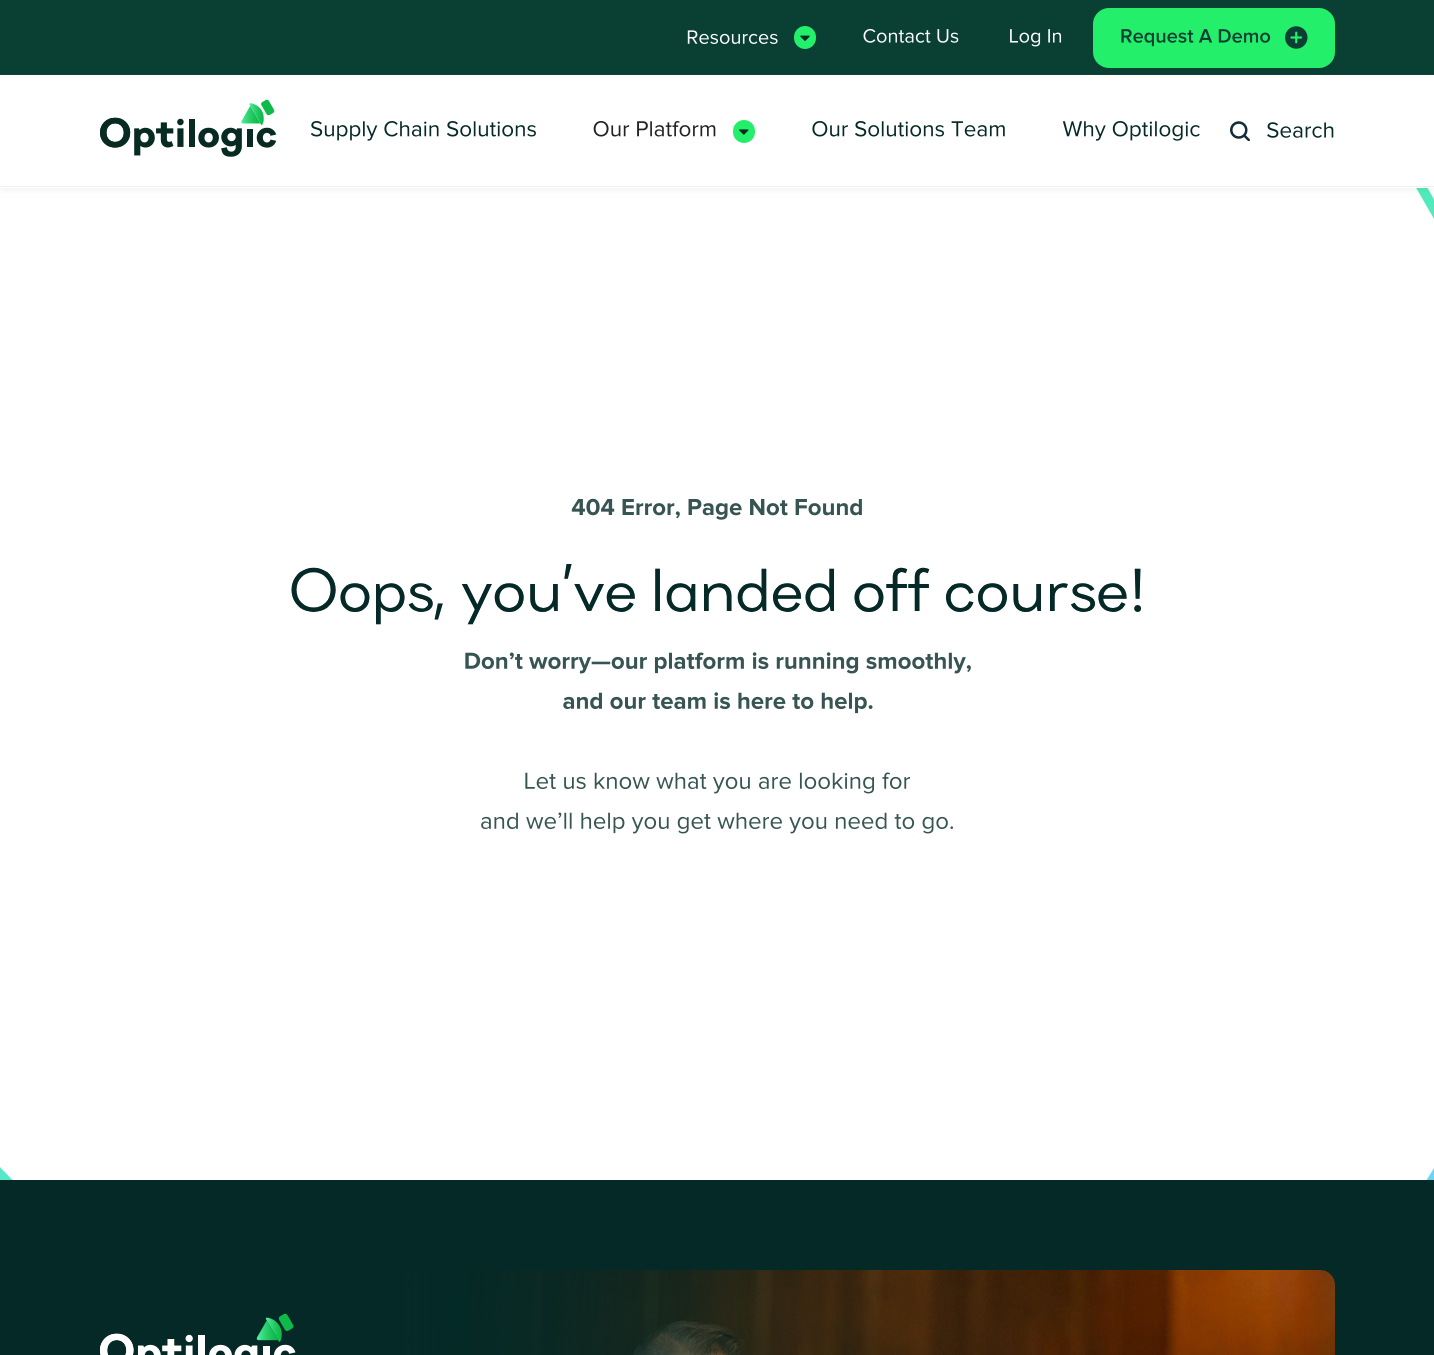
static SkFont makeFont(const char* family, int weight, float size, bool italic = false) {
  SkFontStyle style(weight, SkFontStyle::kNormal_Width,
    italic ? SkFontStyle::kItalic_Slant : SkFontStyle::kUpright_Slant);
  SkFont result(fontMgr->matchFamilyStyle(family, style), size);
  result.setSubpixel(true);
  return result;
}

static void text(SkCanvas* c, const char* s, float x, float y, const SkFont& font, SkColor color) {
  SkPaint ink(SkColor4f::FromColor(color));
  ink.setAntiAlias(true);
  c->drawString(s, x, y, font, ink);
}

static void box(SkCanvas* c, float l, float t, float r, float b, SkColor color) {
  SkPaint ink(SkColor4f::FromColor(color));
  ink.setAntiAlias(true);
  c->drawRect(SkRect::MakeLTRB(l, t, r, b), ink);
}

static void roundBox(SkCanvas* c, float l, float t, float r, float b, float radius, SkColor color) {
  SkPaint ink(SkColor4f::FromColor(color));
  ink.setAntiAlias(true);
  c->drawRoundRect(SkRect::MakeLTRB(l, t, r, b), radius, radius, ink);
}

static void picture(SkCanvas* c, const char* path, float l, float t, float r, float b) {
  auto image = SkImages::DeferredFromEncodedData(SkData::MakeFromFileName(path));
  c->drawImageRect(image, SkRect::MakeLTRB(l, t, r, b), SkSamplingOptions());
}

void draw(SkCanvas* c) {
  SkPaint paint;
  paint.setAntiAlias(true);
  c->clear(0xffffffff);
  picture(c, "img_15.png", 0, 188, 1434, 1180);
  paint.setColor(0x0d000000);
  paint.setMaskFilter(SkMaskFilter::MakeBlur(kNormal_SkBlurStyle, 3));
  c->drawRect(SkRect::MakeLTRB(0, 3, 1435, 190), paint);
  paint.setMaskFilter(nullptr);
  box(c, 0, 0, 1434, 74, 0xff0a3f34);
  box(c, 0, 74, 1434, 75, 0xff0f443c);
  picture(c, "img_01.png", 687, 30, 778, 44);
  picture(c, "img_02.png", 794, 26, 816, 49);
  picture(c, "img_03.png", 863, 28, 959, 43);
  picture(c, "img_04.png", 1010, 29, 1062, 47);
  roundBox(c, 1093, 8, 1335, 68, 16, 0xff23ef6a);
  picture(c, "img_05.png", 1121, 29, 1271, 47);
  picture(c, "img_06.png", 1285, 26, 1308, 49);
  box(c, 0, 75, 1434, 188, 0xffffffff);
  box(c, 0, 186, 1434, 187, 0xffecf1f3);
  picture(c, "img_07.png", 100, 99, 277, 157);
  picture(c, "img_08.png", 310, 121, 536, 141);
  picture(c, "img_09.png", 593, 121, 716, 137);
  picture(c, "img_10.png", 733, 120, 755, 143);
  picture(c, "img_11.png", 812, 121, 1005, 137);
  picture(c, "img_12.png", 1062, 121, 1200, 141);
  picture(c, "img_13.png", 1230, 121, 1250, 141);
  picture(c, "img_14.png", 1267, 122, 1334, 138);
  picture(c, "img_16.png", 571, 498, 862, 520);
  SkFont face1 = makeFont("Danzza", 400, 60);
  text(c, "Oops, you’ve landed off course!", 289, 611, face1, 0xff042926);
  picture(c, "img_17.png", 465, 652, 971, 674);
  picture(c, "img_18.png", 563, 692, 873, 714);
  picture(c, "img_19.png", 525, 772, 911, 794);
  picture(c, "img_20.png", 481, 812, 953, 834);
  box(c, 0, 1180, 1434, 1355, 0xff042926);
  picture(c, "img_22.png", 470, 1270, 1335, 1355);
  {
    const SkColor colors[] = {0x00042926, 0xff042926};
    const float stops[] = {0.34f, 0.93f};
    SkMatrix m = SkMatrix::Translate(1538, 1270).preScale(1314, 696);
    paint.setShader(SkGradientShader::MakeRadial({0, 0}, 1, colors, stops, 2, SkTileMode::kClamp, 0, &m));
    paint.setAlpha(255);
  }
  c->drawRoundRect(SkRect::MakeLTRB(100, 1270, 1335, 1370), 15, 15, paint);
  {
    const SkColor colors[] = {0x00042926, 0xff042926};
    const float stops[] = {0.42f, 1};
    SkMatrix m = SkMatrix::Translate(1034, 1314).preScale(630, 915);
    paint.setShader(SkGradientShader::MakeRadial({0, 0}, 1, colors, stops, 2, SkTileMode::kClamp, 0, &m));
    paint.setAlpha(255);
  }
  c->drawRoundRect(SkRect::MakeLTRB(100, 1270, 1335, 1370), 15, 15, paint);
  picture(c, "img_21.png", 100, 1313, 296, 1355);
}
